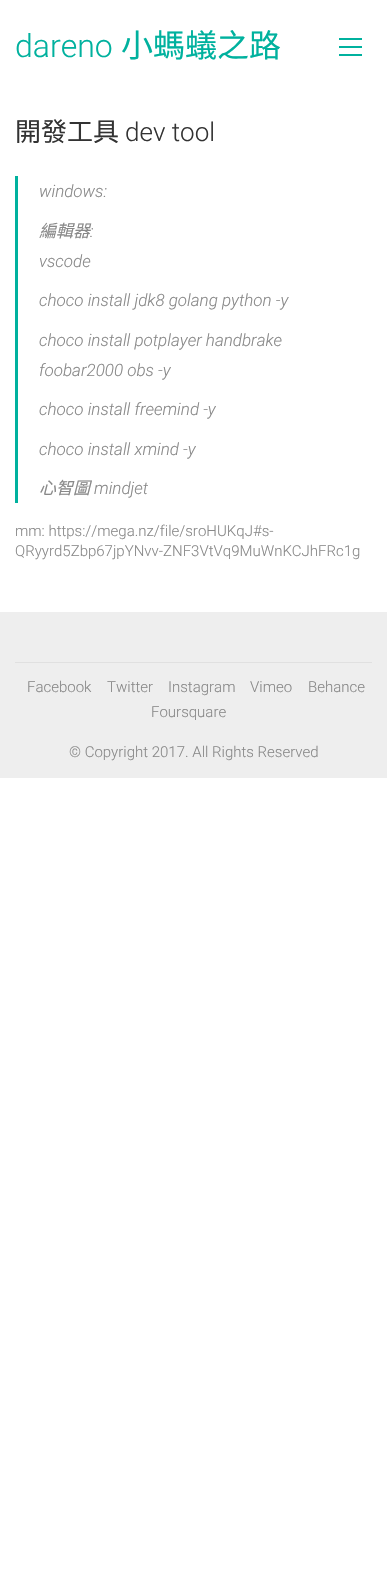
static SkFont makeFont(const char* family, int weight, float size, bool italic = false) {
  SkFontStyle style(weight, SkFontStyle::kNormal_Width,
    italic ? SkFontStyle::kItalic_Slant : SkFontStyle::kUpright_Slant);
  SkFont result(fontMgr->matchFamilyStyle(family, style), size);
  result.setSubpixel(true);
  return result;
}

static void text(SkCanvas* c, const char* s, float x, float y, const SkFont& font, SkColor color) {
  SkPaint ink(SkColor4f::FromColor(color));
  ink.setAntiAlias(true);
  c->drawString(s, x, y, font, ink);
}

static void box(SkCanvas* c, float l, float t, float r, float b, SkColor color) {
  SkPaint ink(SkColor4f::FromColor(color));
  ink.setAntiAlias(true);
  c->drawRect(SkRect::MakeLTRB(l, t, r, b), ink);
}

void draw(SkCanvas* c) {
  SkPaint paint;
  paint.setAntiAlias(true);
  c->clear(0xffffffff);
  SkFont face1 = makeFont("Roboto", 300, 32);
  text(c, "dareno", 15, 57, face1, 0xff00b19e);
  SkFont face2 = makeFont("Noto Sans CJK TC", 400, 32);
  text(c, "小螞蟻之路", 121, 57, face2, 0xff00b19e);
  box(c, 339, 46, 362, 48, 0xff00b19e);
  box(c, 339, 38, 362, 40, 0xff00b19e);
  box(c, 339, 54, 362, 56, 0xff00b19e);
  SkFont face3 = makeFont("Noto Sans CJK TC", 400, 26);
  text(c, "開發工具", 15, 141, face3, 0xff333333);
  SkFont face4 = makeFont("Roboto", 300, 26);
  text(c, "dev tool", 125, 141, face4, 0xff333333);
  box(c, 15, 176, 18, 503, 0xff00b19e);
  SkFont face5 = makeFont("Roboto", 300, 17, true);
  text(c, "windows:", 39, 197, face5, 0xff898989);
  SkFont face6 = makeFont("Noto Sans CJK TC", 400, 17, true);
  text(c, "編輯器", 39, 237, face6, 0xff898989);
  text(c, ":", 90, 237, face5, 0xff898989);
  text(c, "vscode", 39, 267, face5, 0xff898989);
  text(c, "choco install jdk8 golang python -y", 39, 306, face5, 0xff898989);
  text(c, "choco install potplayer handbrake", 39, 346, face5, 0xff898989);
  text(c, "foobar2000 obs -y", 39, 376, face5, 0xff898989);
  text(c, "choco install freemind -y", 39, 415, face5, 0xff898989);
  text(c, "choco install xmind -y", 39, 455, face5, 0xff898989);
  text(c, "心智圖", 39, 494, face6, 0xff898989);
  text(c, "mindjet", 94, 494, face5, 0xff898989);
  SkFont face7 = makeFont("Roboto", 300, 15);
  text(c, "mm: https://mega.nz/file/sroHUKqJ#s-", 15, 536, face7, 0xff898989);
  text(c, "QRyyrd5Zbp67jpYNvv-ZNF3VtVq9MuWnKCJhFRc1g", 15, 556, face7, 0xff898989);
  box(c, 0, 612, 387, 778, 0xffeeeeee);
  box(c, 15, 662, 372, 663, 0xffe0e0e0);
  text(c, "Facebook", 27, 692, face7, 0xff898989);
  text(c, "Twitter", 107, 692, face7, 0xff898989);
  text(c, "Instagram", 168, 692, face7, 0xff898989);
  text(c, "Vimeo", 250, 692, face7, 0xff898989);
  text(c, "Behance", 308, 692, face7, 0xff898989);
  text(c, "Foursquare", 151, 717, face7, 0xff898989);
  text(c, "© Copyright 2017. All Rights Reserved", 69, 757, face7, 0xff898989);
}
